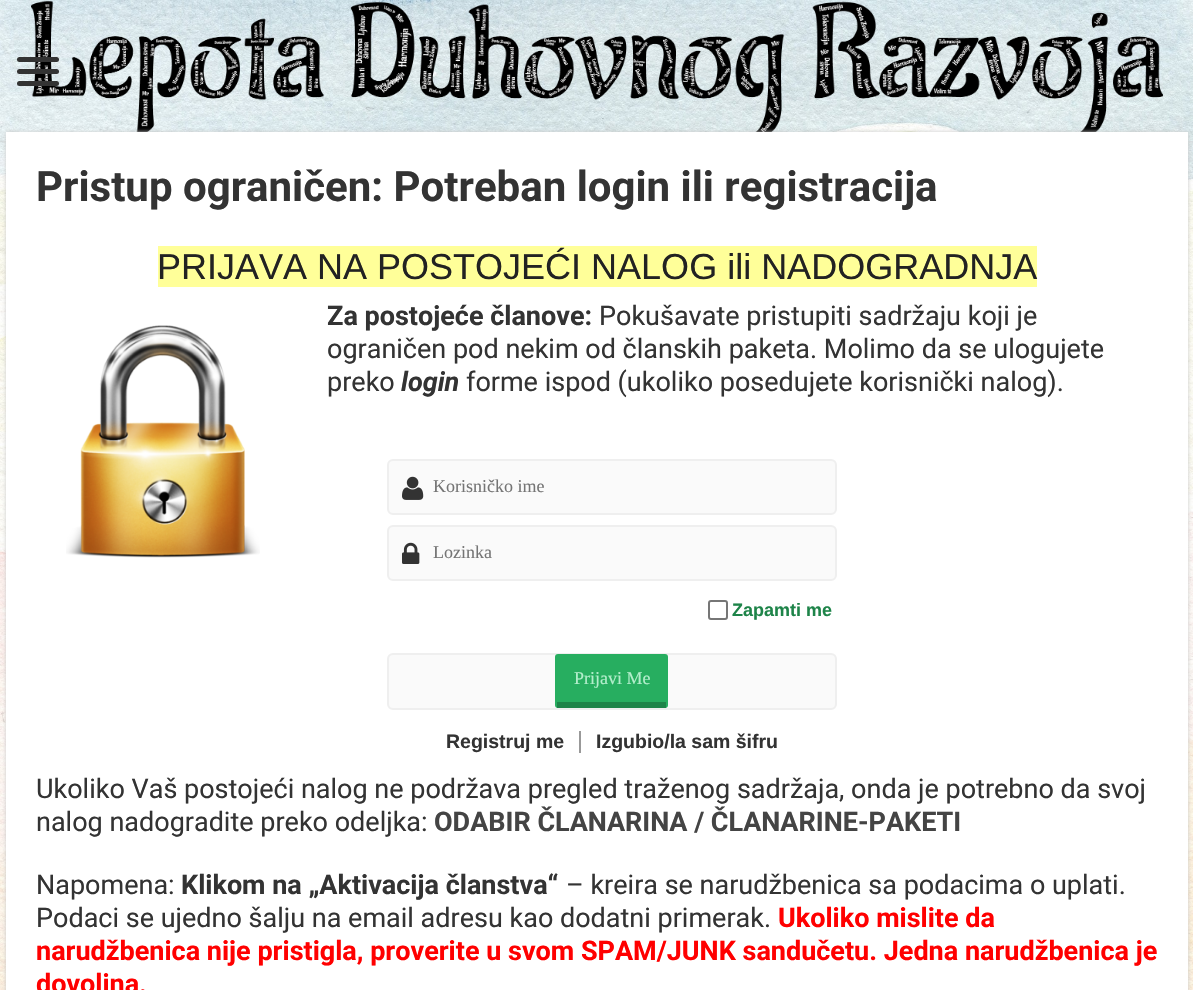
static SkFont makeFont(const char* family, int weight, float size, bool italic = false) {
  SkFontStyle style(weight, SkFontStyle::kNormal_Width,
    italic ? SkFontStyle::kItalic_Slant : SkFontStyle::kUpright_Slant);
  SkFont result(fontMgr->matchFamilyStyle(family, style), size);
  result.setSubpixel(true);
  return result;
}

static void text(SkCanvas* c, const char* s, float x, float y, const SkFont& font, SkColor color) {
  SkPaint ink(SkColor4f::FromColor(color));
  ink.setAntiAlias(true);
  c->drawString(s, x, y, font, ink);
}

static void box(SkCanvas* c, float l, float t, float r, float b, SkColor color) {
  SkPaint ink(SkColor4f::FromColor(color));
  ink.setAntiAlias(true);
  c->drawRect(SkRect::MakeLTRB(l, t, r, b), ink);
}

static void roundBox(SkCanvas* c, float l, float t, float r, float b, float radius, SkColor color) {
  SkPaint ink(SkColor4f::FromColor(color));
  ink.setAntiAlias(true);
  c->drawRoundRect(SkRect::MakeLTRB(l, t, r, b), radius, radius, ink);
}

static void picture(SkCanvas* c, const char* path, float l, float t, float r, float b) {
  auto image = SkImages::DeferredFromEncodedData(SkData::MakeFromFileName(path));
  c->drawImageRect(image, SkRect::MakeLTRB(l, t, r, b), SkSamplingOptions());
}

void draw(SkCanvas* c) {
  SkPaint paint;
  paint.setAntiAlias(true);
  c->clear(0xffffffff);
  picture(c, "img_01.png", 0, 0, 1193, 990);
  c->save();
  c->clipRect(SkRect::MakeLTRB(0, 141, 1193, 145));
  paint.setColor(0xffcacaca);
  paint.setMaskFilter(SkMaskFilter::MakeBlur(kNormal_SkBlurStyle, 2));
  c->drawRect(SkRect::MakeLTRB(0, 0, 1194, 141), paint);
  paint.setMaskFilter(nullptr);
  c->restore();
  picture(c, "img_02.png", 31, 0, 1164, 132);
  roundBox(c, 17, 57, 59, 62, 2.5f, 0xff333333);
  roundBox(c, 17, 69, 59, 74, 2.5f, 0xff333333);
  roundBox(c, 17, 81, 59, 86, 2.5f, 0xff333333);
  paint.setMaskFilter(SkMaskFilter::MakeBlur(kNormal_SkBlurStyle, 2));
  c->drawRect(SkRect::MakeLTRB(6, 132, 1188, 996), paint);
  paint.setMaskFilter(nullptr);
  box(c, 6, 132, 1188, 990, 0xffffffff);
  SkFont face1 = makeFont("Roboto", 700, 42);
  text(c, "Pristup ograničen: Potreban login ili registracija", 36, 201, face1, 0xff333333);
  box(c, 158, 246, 1037, 287, 0xffffff99);
  SkFont face2 = makeFont("Liberation Sans", 400, 36);
  text(c, "PRIJAVA NA POSTOJEĆI NALOG ili NADOGRADNJA", 157, 279, face2, 0xff222222);
  SkFont face3 = makeFont("Roboto", 700, 27);
  text(c, "Za postojeće članove:", 327, 325, face3, 0xff333333);
  picture(c, "img_03.png", 66, 325, 260, 558);
  SkFont face4 = makeFont("Roboto", 400, 27);
  text(c, "Pokušavate pristupiti sadržaju koji je", 599, 325, face4, 0xff333333);
  text(c, "ograničen pod nekim od članskih paketa. Molimo da se ulogujete", 327, 358, face4, 0xff333333);
  text(c, "preko", 327, 391, face4, 0xff333333);
  SkFont face5 = makeFont("Roboto", 700, 27, true);
  text(c, "login", 401, 391, face5, 0xff333333);
  text(c, "forme ispod (ukoliko posedujete korisnički nalog).", 466, 391, face4, 0xff333333);
  paint.setColor(0xfffafafa);
  c->drawRoundRect(SkRect::MakeLTRB(388, 460, 836, 514), 5, 5, paint);
  paint.setStyle(SkPaint::kStroke_Style);
  paint.setStrokeWidth(2);
  paint.setColor(0xffefefef);
  c->drawRoundRect(SkRect::MakeLTRB(388, 460, 836, 514), 5, 5, paint);
  picture(c, "img_04.png", 402, 476, 424, 500);
  SkFont face6 = makeFont("Liberation Serif", 400, 18);
  text(c, "Korisničko ime", 433, 492, face6, 0xff757575);
  paint.setStyle(SkPaint::kFill_Style);
  paint.setColor(0xfffafafa);
  c->drawRoundRect(SkRect::MakeLTRB(388, 526, 836, 580), 5, 5, paint);
  paint.setStyle(SkPaint::kStroke_Style);
  paint.setColor(0xffefefef);
  c->drawRoundRect(SkRect::MakeLTRB(388, 526, 836, 580), 5, 5, paint);
  picture(c, "img_05.png", 402, 542, 420, 564);
  text(c, "Lozinka", 433, 558, face6, 0xff757575);
  paint.setColor(0xff767676);
  c->drawRoundRect(SkRect::MakeLTRB(709, 601, 727, 619), 2, 2, paint);
  SkFont face7 = makeFont("Liberation Sans", 700, 18);
  text(c, "Zapamti me", 732, 616, face7, 0xff1e8449);
  paint.setStyle(SkPaint::kFill_Style);
  paint.setColor(0xfffafafa);
  c->drawRoundRect(SkRect::MakeLTRB(388, 654, 836, 709), 5, 5, paint);
  paint.setStyle(SkPaint::kStroke_Style);
  paint.setColor(0xffefefef);
  c->drawRoundRect(SkRect::MakeLTRB(388, 654, 836, 709), 5, 5, paint);
  roundBox(c, 555, 654, 668, 708, 3, 0xff27ae60);
  box(c, 557, 702, 666, 708, 0xff1e8449);
  text(c, "Prijavi Me", 574, 684, face6, 0xffb3eecc);
  SkFont face8 = makeFont("Liberation Sans", 700, 19.5f);
  text(c, "Registruj me", 446, 748, face8, 0xff333333);
  box(c, 579, 731, 581, 753, 0xff999999);
  text(c, "Izgubio/la sam šifru", 596, 748, face8, 0xff333333);
  text(c, "Ukoliko Vaš postojeći nalog ne podržava pregled traženog sadržaja, onda je potrebno da svoj", 36, 798, face4, 0xff333333);
  text(c, "nalog nadogradite preko odeljka:", 36, 831, face4, 0xff333333);
  text(c, "ODABIR ČLANARINA / ČLANARINE-PAKETI", 434, 831, face3, 0xff444444);
  text(c, "Napomena:", 36, 894, face4, 0xff333333);
  text(c, "Klikom na „Aktivacija članstva“", 181, 894, face3, 0xff333333);
  text(c, "– kreira se narudžbenica sa podacima o uplati.", 566, 894, face4, 0xff333333);
  text(c, "Podaci se ujedno šalju na email adresu kao dodatni primerak.", 36, 927, face4, 0xff333333);
  text(c, "Ukoliko mislite da", 778, 927, face3, 0xffff0000);
  text(c, "narudžbenica nije pristigla, proverite u svom SPAM/JUNK sandučetu. Jedna narudžbenica je", 36, 960, face3, 0xffff0000);
  text(c, "dovoljna.", 36, 993, face3, 0xffff0000);
}
